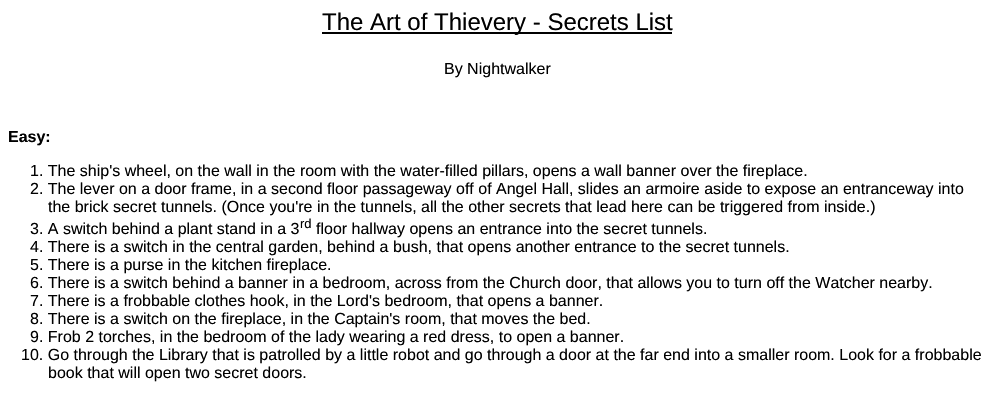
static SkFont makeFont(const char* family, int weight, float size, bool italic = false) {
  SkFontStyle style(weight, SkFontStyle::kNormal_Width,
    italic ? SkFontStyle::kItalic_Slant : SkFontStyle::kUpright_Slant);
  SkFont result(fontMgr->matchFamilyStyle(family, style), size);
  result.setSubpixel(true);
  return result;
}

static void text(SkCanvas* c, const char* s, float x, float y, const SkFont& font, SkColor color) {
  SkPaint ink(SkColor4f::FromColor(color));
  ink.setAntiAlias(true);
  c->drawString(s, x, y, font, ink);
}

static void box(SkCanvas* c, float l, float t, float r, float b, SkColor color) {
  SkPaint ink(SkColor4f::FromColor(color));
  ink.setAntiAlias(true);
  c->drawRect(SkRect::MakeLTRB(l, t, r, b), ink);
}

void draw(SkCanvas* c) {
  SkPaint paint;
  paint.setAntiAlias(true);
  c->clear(0xffffffff);
  box(c, 322, 32, 672, 34, 0xff000000);
  SkFont face1 = makeFont("Liberation Sans", 400, 24);
  text(c, "The Art of Thievery - Secrets List", 322, 30, face1, 0xff000000);
  SkFont face2 = makeFont("Liberation Sans", 400, 16);
  text(c, "By Nightwalker", 444, 74, face2, 0xff000000);
  SkFont face3 = makeFont("Liberation Sans", 700, 16);
  text(c, "Easy:", 8, 142, face3, 0xff000000);
  text(c, "1. The ship's wheel, on the wall in the room with the water-filled pillars, opens a wall banner over the fireplace.", 30, 176, face2, 0xff000000);
  text(c, "2. The lever on a door frame, in a second floor passageway off of Angel Hall, slides an armoire aside to expose an entranceway into", 30, 194, face2, 0xff000000);
  text(c, "the brick secret tunnels. (Once you're in the tunnels, all the other secrets that lead here can be triggered from inside.)", 48, 212, face2, 0xff000000);
  text(c, "3. A switch behind a plant stand in a 3", 30, 234, face2, 0xff000000);
  SkFont face4 = makeFont("Liberation Sans", 400, 13);
  text(c, "rd", 300, 228, face4, 0xff000000);
  text(c, "floor hallway opens an entrance into the secret tunnels.", 316, 234, face2, 0xff000000);
  text(c, "4. There is a switch in the central garden, behind a bush, that opens another entrance to the secret tunnels.", 30, 252, face2, 0xff000000);
  text(c, "5. There is a purse in the kitchen fireplace.", 30, 270, face2, 0xff000000);
  text(c, "6. There is a switch behind a banner in a bedroom, across from the Church door, that allows you to turn off the Watcher nearby.", 30, 288, face2, 0xff000000);
  text(c, "7. There is a frobbable clothes hook, in the Lord's bedroom, that opens a banner.", 30, 306, face2, 0xff000000);
  text(c, "8. There is a switch on the fireplace, in the Captain's room, that moves the bed.", 30, 324, face2, 0xff000000);
  text(c, "9. Frob 2 torches, in the bedroom of the lady wearing a red dress, to open a banner.", 30, 342, face2, 0xff000000);
  text(c, "10. Go through the Library that is patrolled by a little robot and go through a door at the far end into a smaller room. Look for a frobbable", 21, 360, face2, 0xff000000);
  text(c, "book that will open two secret doors.", 48, 378, face2, 0xff000000);
}
